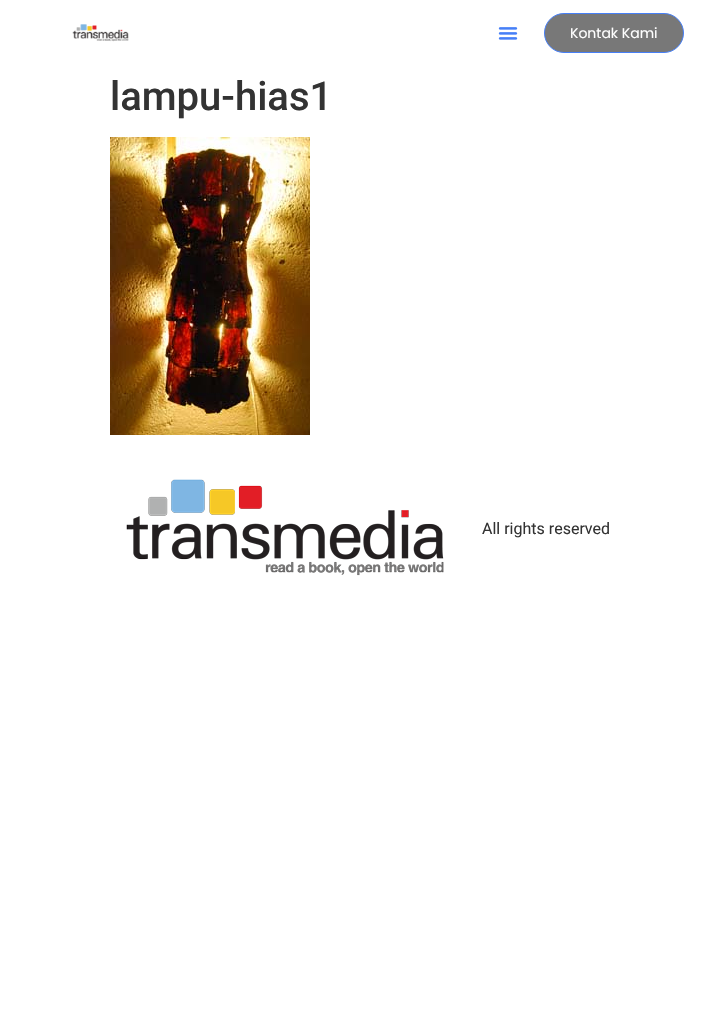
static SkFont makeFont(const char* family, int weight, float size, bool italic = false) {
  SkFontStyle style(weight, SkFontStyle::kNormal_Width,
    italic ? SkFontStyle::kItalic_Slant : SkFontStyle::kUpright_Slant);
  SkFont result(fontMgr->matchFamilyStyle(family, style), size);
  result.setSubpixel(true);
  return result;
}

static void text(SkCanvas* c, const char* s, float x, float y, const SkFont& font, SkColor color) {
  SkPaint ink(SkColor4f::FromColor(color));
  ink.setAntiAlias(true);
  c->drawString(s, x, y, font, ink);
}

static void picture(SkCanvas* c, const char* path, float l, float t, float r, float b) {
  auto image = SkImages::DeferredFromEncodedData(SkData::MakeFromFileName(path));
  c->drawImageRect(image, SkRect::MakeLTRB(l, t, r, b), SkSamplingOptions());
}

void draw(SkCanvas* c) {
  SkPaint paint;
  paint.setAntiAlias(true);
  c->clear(0xffffffff);
  picture(c, "img_01.png", 72, 24, 129, 42);
  picture(c, "img_02.png", 498, 27, 518, 40);
  paint.setColor(0xff787878);
  c->drawRoundRect(SkRect::MakeLTRB(544.5f, 13.5f, 683.5f, 52.5f), 19.5f, 19.5f, paint);
  paint.setStyle(SkPaint::kStroke_Style);
  paint.setStrokeWidth(1);
  paint.setColor(0xff467ff7);
  c->drawRoundRect(SkRect::MakeLTRB(544.5f, 13.5f, 683.5f, 52.5f), 19.5f, 19.5f, paint);
  SkFont face1 = makeFont("Poppins", 400, 14);
  text(c, "Kontak Kami", 570, 38, face1, 0xffffffff);
  SkFont face2 = makeFont("Roboto", 500, 40);
  text(c, "lampu-hias1", 110, 110, face2, 0xff333333);
  picture(c, "img_03.png", 110, 137, 310, 435);
  picture(c, "img_04.png", 126, 479, 444, 576);
  SkFont face3 = makeFont("Roboto", 400, 16);
  text(c, "All rights reserved", 482, 534, face3, 0xff333333);
}
